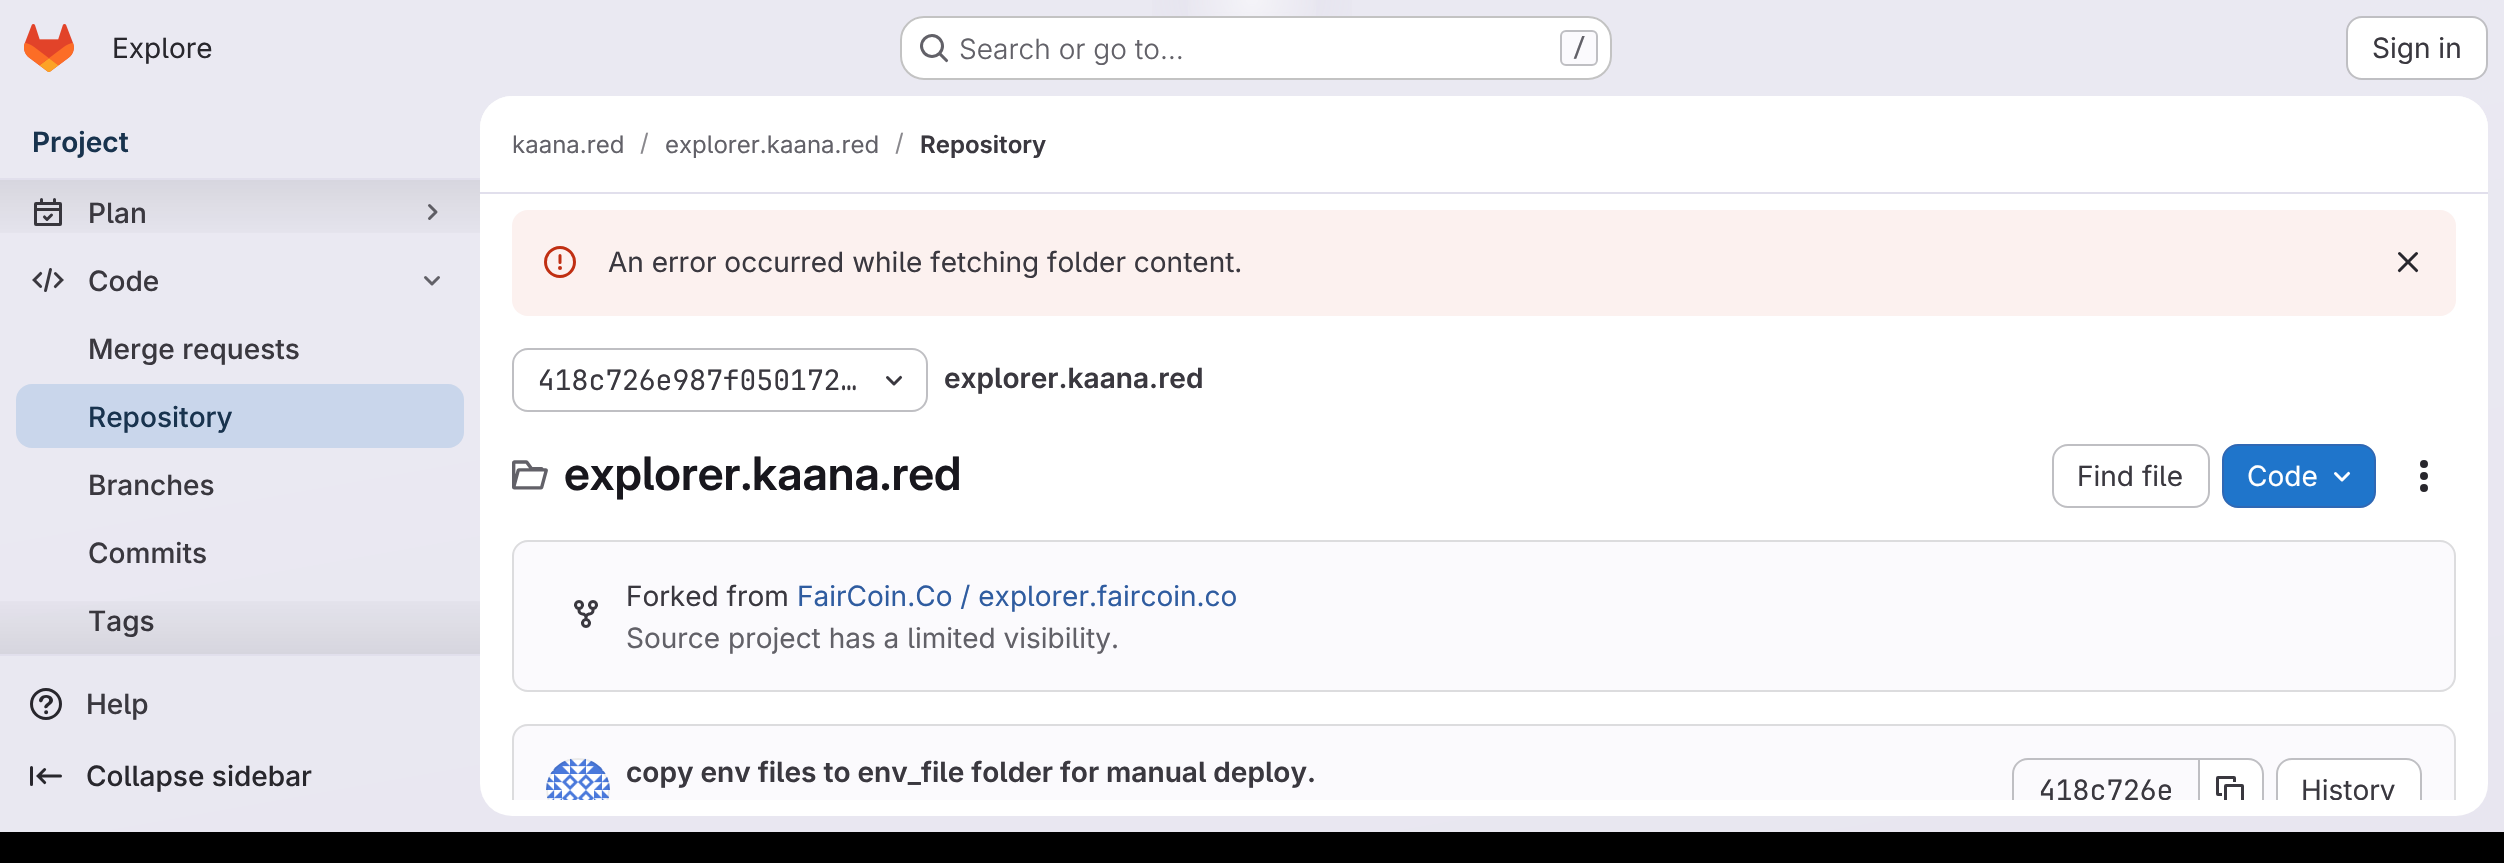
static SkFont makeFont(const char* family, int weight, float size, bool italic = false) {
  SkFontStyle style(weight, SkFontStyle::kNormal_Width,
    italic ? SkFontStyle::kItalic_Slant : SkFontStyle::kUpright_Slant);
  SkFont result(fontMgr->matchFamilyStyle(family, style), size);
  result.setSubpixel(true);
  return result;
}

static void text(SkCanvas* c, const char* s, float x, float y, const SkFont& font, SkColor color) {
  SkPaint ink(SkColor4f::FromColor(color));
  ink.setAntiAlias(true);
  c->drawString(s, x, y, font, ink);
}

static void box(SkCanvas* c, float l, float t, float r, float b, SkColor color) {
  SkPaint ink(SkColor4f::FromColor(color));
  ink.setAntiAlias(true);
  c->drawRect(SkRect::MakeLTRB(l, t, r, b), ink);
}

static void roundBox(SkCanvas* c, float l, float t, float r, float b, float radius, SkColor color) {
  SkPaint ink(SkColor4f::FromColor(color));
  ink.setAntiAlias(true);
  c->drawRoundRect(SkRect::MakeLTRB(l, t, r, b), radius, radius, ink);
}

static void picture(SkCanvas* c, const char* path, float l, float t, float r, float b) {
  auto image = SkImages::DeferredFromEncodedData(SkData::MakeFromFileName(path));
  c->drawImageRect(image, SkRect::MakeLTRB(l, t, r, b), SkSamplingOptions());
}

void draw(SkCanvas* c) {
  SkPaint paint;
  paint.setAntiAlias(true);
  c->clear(0xffffffff);
  {
    const SkColor colors[] = {0xffe8e6f0, 0xffeae9f2};
    const float stops[] = {0, 0.7f};
    const SkPoint ends[] = {{1364, 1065}, {1140, -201}};
    paint.setShader(SkGradientShader::MakeLinear(ends, colors, stops, 2, SkTileMode::kClamp));
    paint.setAlpha(255);
  }
  c->drawRect(SkRect::MakeLTRB(0, 0, 2504, 832), paint);
  {
    const SkColor colors[] = {0xffe4e2ed, 0x00e4e2ed};
    const float stops[] = {0, 0.11f};
    SkMatrix m = SkMatrix::Translate(1252, 0).preScale(1252, 864);
    paint.setShader(SkGradientShader::MakeRadial({0, 0}, 1, colors, stops, 2, SkTileMode::kClamp, 0, &m));
    paint.setAlpha(255);
  }
  c->drawRect(SkRect::MakeLTRB(1152, 0, 1352, 68), paint);
  {
    const SkColor colors[] = {0xffe4e2ec, 0x00e4e2ec};
    const float stops[] = {0, 0.08f};
    SkMatrix m = SkMatrix::Translate(1252, 0).preScale(1252, 864);
    paint.setShader(SkGradientShader::MakeRadial({0, 0}, 1, colors, stops, 2, SkTileMode::kClamp, 0, &m));
    paint.setAlpha(255);
  }
  c->drawRect(SkRect::MakeLTRB(1214, 12, 1290, 13), paint);
  {
    const SkColor colors[] = {0x99ffffff, 0x00ffffff};
    const float stops[] = {0, 0.05f};
    paint.setShader(SkGradientShader::MakeRadial({1252, 0}, 1521, colors, stops, 2, SkTileMode::kClamp));
    paint.setAlpha(255);
  }
  c->drawRect(SkRect::MakeLTRB(1188, 0, 1316, 16), paint);
  picture(c, "img_01.png", 24, 24, 74, 72);
  SkFont face1 = makeFont("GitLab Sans", 400, 28);
  text(c, "Explore", 112, 58, face1, 0xff28272d);
  roundBox(c, 900, 16, 1612, 80, 24, 0xffffffff);
  paint.setStyle(SkPaint::kStroke_Style);
  paint.setStrokeWidth(2);
  paint.setShader(nullptr);
  paint.setColor(0x3d050506);
  c->drawRoundRect(SkRect::MakeLTRB(901, 17, 1611, 79), 23, 23, paint);
  picture(c, "img_02.png", 920, 34, 949, 63);
  SkFont face2 = makeFont("GitLab Sans", 300, 28);
  text(c, "Search or go to…", 959, 59, face2, 0xff626168);
  paint.setStyle(SkPaint::kFill_Style);
  paint.setColor(0xfffbfafd);
  c->drawRoundRect(SkRect::MakeLTRB(1561, 31, 1597, 65), 5, 5, paint);
  paint.setStyle(SkPaint::kStroke_Style);
  paint.setColor(0xffbfbfc3);
  c->drawRoundRect(SkRect::MakeLTRB(1561, 31, 1597, 65), 5, 5, paint);
  SkFont face3 = makeFont("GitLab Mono", 500, 24);
  text(c, "/", 1572, 56, face3, 0xff626168);
  paint.setStyle(SkPaint::kFill_Style);
  paint.setColor(0xffffffff);
  c->drawRoundRect(SkRect::MakeLTRB(2347, 17, 2487, 79), 15, 15, paint);
  paint.setStyle(SkPaint::kStroke_Style);
  paint.setColor(0xffbfbfc3);
  c->drawRoundRect(SkRect::MakeLTRB(2347, 17, 2487, 79), 15, 15, paint);
  text(c, "Sign in", 2372, 58, face1, 0xff3a383f);
  SkFont face4 = makeFont("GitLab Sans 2", 600, 28);
  text(c, "Project", 32, 152, face4, 0xff18334e);
  box(c, 0, 178, 480, 180, 0xffe1dfec);
  box(c, 0, 654, 480, 656, 0xffe1dfec);
  picture(c, "img_03.png", 34, 198, 62, 226);
  paint.setStrokeWidth(3);
  paint.setStrokeCap(SkPaint::kRound_Cap);
  paint.setStrokeJoin(SkPaint::kRound_Join);
  paint.setColor(0xff626168);
  c->drawPath(SkPathBuilder().moveTo(429.5f, 205.5f).lineTo(436, 212).lineTo(429.5f, 218.5f).detach(), paint);
  paint.setStyle(SkPaint::kFill_Style);
  {
    const SkColor colors[] = {0x14050506, 0x00050506};
    const float stops[] = {0, 1};
    const SkPoint ends[] = {{240, 180}, {240, 252}};
    paint.setShader(SkGradientShader::MakeLinear(ends, colors, stops, 2, SkTileMode::kClamp));
    paint.setAlpha(255);
  }
  c->drawRect(SkRect::MakeLTRB(0, 180, 480, 233), paint);
  SkFont face5 = makeFont("GitLab Sans", 500, 28);
  text(c, "Plan", 88, 223, face5, 0xff3a383f);
  picture(c, "img_04.png", 32, 268, 64, 292);
  text(c, "Code", 88, 291, face5, 0xff3a383f);
  paint.setStyle(SkPaint::kStroke_Style);
  paint.setShader(nullptr);
  paint.setColor(0xff626168);
  c->drawPath(SkPathBuilder().moveTo(438.5f, 277.5f).lineTo(432, 284).lineTo(425.5f, 277.5f).detach(), paint);
  text(c, "Merge requests", 88, 359, face5, 0xff3a383f);
  roundBox(c, 16, 384, 464, 448, 16, 0xffc9d6eb);
  text(c, "Repository", 88, 427, face5, 0xff18334e);
  text(c, "Branches", 88, 495, face5, 0xff3a383f);
  text(c, "Commits", 88, 563, face5, 0xff3a383f);
  text(c, "Tags", 88, 631, face5, 0xff3a383f);
  paint.setStyle(SkPaint::kFill_Style);
  {
    const SkColor colors[] = {0x00050506, 0x14050506};
    const float stops[] = {0, 1};
    const SkPoint ends[] = {{240, 582}, {240, 654}};
    paint.setShader(SkGradientShader::MakeLinear(ends, colors, stops, 2, SkTileMode::kClamp));
    paint.setAlpha(255);
  }
  c->drawRect(SkRect::MakeLTRB(0, 601, 480, 654), paint);
  picture(c, "img_05.png", 30, 688, 62, 720);
  text(c, "Help", 86, 714, face5, 0xff3a383f);
  picture(c, "img_06.png", 30, 766, 62, 786);
  text(c, "Collapse sidebar", 86, 786, face5, 0xff28272d);
  roundBox(c, 480, 96, 2488, 816, 32, 0xffffffff);
  paint.setShader(nullptr);
  paint.setColor(0xffffffff);
  c->drawPath(SkPathBuilder().moveTo(512, 96).lineTo(2456, 96).cubicTo(2473.5f, 96, 2488, 110.5f, 2488, 128).lineTo(2488, 194).lineTo(480, 194).lineTo(480, 128).cubicTo(480, 110.5f, 494.5f, 96, 512, 96).close().detach(), paint);
  box(c, 480, 192, 2488, 194, 0xffe1dfec);
  SkFont face6 = makeFont("GitLab Sans", 400, 24);
  text(c, "kaana.red", 512, 153, face6, 0xff626168);
  text(c, "/", 640, 151, face6, 0xff89888d);
  text(c, "explorer.kaana.red", 665, 153, face6, 0xff626168);
  text(c, "/", 895, 151, face6, 0xff89888d);
  SkFont face7 = makeFont("GitLab Sans 2", 600, 24);
  text(c, "Repository", 920, 153, face7, 0xff3a383f);
  roundBox(c, 512, 210, 2456, 316, 16, 0xfffcf1ef);
  picture(c, "img_07.png", 544, 246, 576, 278);
  text(c, "An error occurred while fetching folder content.", 608, 272, face1, 0xff3a383f);
  picture(c, "img_08.png", 2397, 252, 2419, 273);
  paint.setStyle(SkPaint::kStroke_Style);
  paint.setStrokeWidth(2);
  paint.setStrokeCap(SkPaint::kButt_Cap);
  paint.setStrokeJoin(SkPaint::kMiter_Join);
  paint.setColor(0xffbfbfc3);
  c->drawRoundRect(SkRect::MakeLTRB(513, 349, 927, 411), 15, 15, paint);
  SkFont face8 = makeFont("GitLab Mono", 400, 28);
  text(c, "418c726e987f050172…", 538, 390, face8, 0xff3a383f);
  picture(c, "img_09.png", 886, 375, 903, 386);
  text(c, "explorer.kaana.red", 944, 388, face4, 0xff3a383f);
  picture(c, "img_10.png", 512, 460, 548, 490);
  SkFont face9 = makeFont("GitLab Sans", 600, 46);
  text(c, "explorer.kaana.red", 564, 490, face9, 0xff18171d);
  c->drawRoundRect(SkRect::MakeLTRB(2053, 445, 2209, 507), 15, 15, paint);
  text(c, "Find file", 2077, 486, face1, 0xff3a383f);
  paint.setStyle(SkPaint::kFill_Style);
  paint.setColor(0xff1f75cb);
  c->drawRoundRect(SkRect::MakeLTRB(2223, 445, 2375, 507), 15, 15, paint);
  paint.setStyle(SkPaint::kStroke_Style);
  paint.setColor(0xff2f68b4);
  c->drawRoundRect(SkRect::MakeLTRB(2223, 445, 2375, 507), 15, 15, paint);
  text(c, "Code", 2247, 486, face1, 0xffffffff);
  picture(c, "img_11.png", 2334, 471, 2351, 482);
  picture(c, "img_12.png", 2420, 460, 2428, 492);
  paint.setStyle(SkPaint::kFill_Style);
  paint.setColor(0xfffbfafd);
  c->drawRoundRect(SkRect::MakeLTRB(513, 541, 2455, 691), 15, 15, paint);
  paint.setStyle(SkPaint::kStroke_Style);
  paint.setColor(0xffdcdcde);
  c->drawRoundRect(SkRect::MakeLTRB(513, 541, 2455, 691), 15, 15, paint);
  picture(c, "img_13.png", 574, 600, 598, 628);
  text(c, "Forked from", 626, 606, face1, 0xff3a383f);
  text(c, "FairCoin.Co / explorer.faircoin.co", 797, 606, face1, 0xff2f5ca0);
  text(c, "Source project has a limited visibility.", 626, 648, face1, 0xff626168);
  paint.setStyle(SkPaint::kFill_Style);
  paint.setColor(0xfffbfafd);
  c->drawPath(SkPathBuilder().moveTo(528, 724).lineTo(2440, 724).cubicTo(2449, 724, 2456, 731, 2456, 740).lineTo(2456, 800).lineTo(512, 800).lineTo(512, 740).cubicTo(512, 731, 519, 724, 528, 724).close().detach(), paint);
  c->save();
  c->clipRect(SkRect::MakeLTRB(480, 194, 2488, 800));
  paint.setColor(0xffdcdcde);
  c->drawPath(SkPathBuilder().moveTo(528, 724).cubicTo(519, 724, 512, 731, 512, 740).lineTo(512, 816).lineTo(514, 816).lineTo(514, 740).cubicTo(514, 732, 520, 726, 528, 726).lineTo(2440, 726).cubicTo(2448, 726, 2454, 732, 2454, 740).lineTo(2454, 816).lineTo(2456, 816).lineTo(2456, 740).cubicTo(2456, 731, 2449, 724, 2440, 724).close().detach(), paint);
  c->restore();
  picture(c, "img_14.png", 546, 758, 610, 800);
  c->save();
  c->clipRect(SkRect::MakeLTRB(480, 194, 2488, 800));
  paint.setColor(0x14050506);
  c->drawPath(SkPathBuilder().moveTo(578, 758).cubicTo(547, 758, 535, 798, 559, 816).lineTo(563, 816).cubicTo(554, 811, 548, 801, 548, 790).cubicTo(548, 773, 561, 760, 578, 760).cubicTo(595, 760, 608, 773, 608, 790).cubicTo(608, 801, 602, 811, 593, 816).lineTo(597, 816).cubicTo(621, 798, 609, 758, 578, 758).close().detach(), paint);
  c->restore();
  text(c, "copy env files to env_file folder for manual deploy.", 626, 782, face4, 0xff3a383f);
  c->save();
  c->clipRect(SkRect::MakeLTRB(480, 194, 2488, 800));
  paint.setColor(0xffbfbfc3);
  c->drawPath(SkPathBuilder().moveTo(2028, 758).lineTo(2198, 758).lineTo(2198, 760).lineTo(2028, 760).cubicTo(2020, 760, 2014, 766, 2014, 774).lineTo(2014, 806).cubicTo(2014, 810, 2016, 814, 2018, 816).lineTo(2015, 816).cubicTo(2013, 813, 2012, 810, 2012, 806).lineTo(2012, 774).cubicTo(2012, 765, 2019, 758, 2028, 758).close().detach(), paint);
  c->restore();
  c->save();
  c->clipRect(SkRect::MakeLTRB(2038, 772, 2174, 800));
  text(c, "418c726e", 2039, 800, face8, 0xff3a383f);
  c->restore();
  paint.setColor(0xffffffff);
  c->drawPath(SkPathBuilder().moveTo(2200, 760).lineTo(2248, 760).cubicTo(2255.5f, 760, 2262, 766.5f, 2262, 774).lineTo(2262, 800).lineTo(2200, 800).close().detach(), paint);
  c->save();
  c->clipRect(SkRect::MakeLTRB(480, 194, 2488, 800));
  paint.setColor(0xffbfbfc3);
  c->drawPath(SkPathBuilder().moveTo(2200, 758).lineTo(2248, 758).cubicTo(2257, 758, 2264, 765, 2264, 774).lineTo(2264, 806).cubicTo(2264, 810, 2263, 813, 2261, 816).lineTo(2258, 816).cubicTo(2260, 814, 2262, 810, 2262, 806).lineTo(2262, 774).cubicTo(2262, 766, 2256, 760, 2248, 760).lineTo(2200, 760).close().detach(), paint);
  c->restore();
  box(c, 2198, 758, 2200, 800, 0xffbfbfc3);
  picture(c, "img_15.png", 2216, 776, 2244, 800);
  paint.setColor(0xffffffff);
  c->drawPath(SkPathBuilder().moveTo(2292, 758).lineTo(2406, 758).cubicTo(2415, 758, 2422, 765, 2422, 774).lineTo(2422, 800).lineTo(2276, 800).lineTo(2276, 774).cubicTo(2276, 765, 2283, 758, 2292, 758).close().detach(), paint);
  c->save();
  c->clipRect(SkRect::MakeLTRB(480, 194, 2488, 800));
  paint.setColor(0xffbfbfc3);
  c->drawPath(SkPathBuilder().moveTo(2292, 758).cubicTo(2283, 758, 2276, 765, 2276, 774).lineTo(2276, 806).cubicTo(2276, 810, 2277, 813, 2280, 816).lineTo(2282, 816).cubicTo(2280, 813, 2278, 810, 2278, 806).lineTo(2278, 774).cubicTo(2278, 766, 2284, 760, 2292, 760).lineTo(2406, 760).cubicTo(2414, 760, 2420, 766, 2420, 774).lineTo(2420, 806).cubicTo(2420, 810, 2418, 813, 2416, 816).lineTo(2418, 816).cubicTo(2421, 813, 2422, 810, 2422, 806).lineTo(2422, 774).cubicTo(2422, 765, 2415, 758, 2406, 758).close().detach(), paint);
  c->restore();
  c->save();
  c->clipRect(SkRect::MakeLTRB(2302, 772, 2396, 800));
  text(c, "History", 2301, 800, face1, 0xff3a383f);
  c->restore();
  box(c, 0, 832, 2504, 863, 0xff000000);
}
